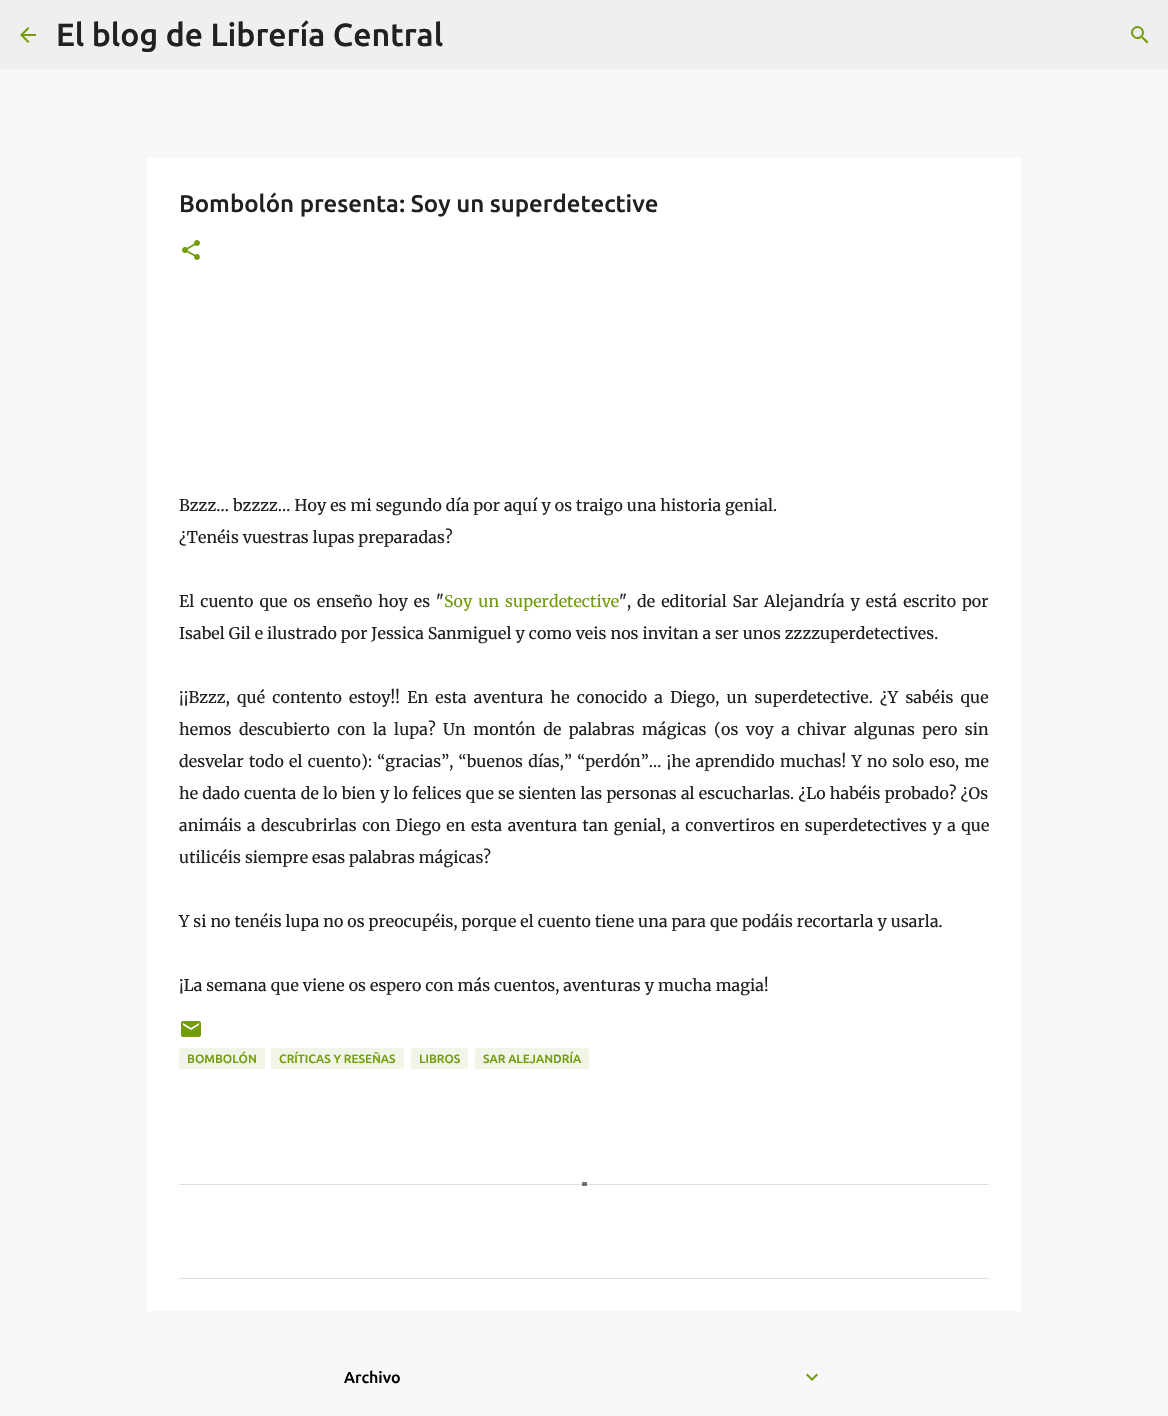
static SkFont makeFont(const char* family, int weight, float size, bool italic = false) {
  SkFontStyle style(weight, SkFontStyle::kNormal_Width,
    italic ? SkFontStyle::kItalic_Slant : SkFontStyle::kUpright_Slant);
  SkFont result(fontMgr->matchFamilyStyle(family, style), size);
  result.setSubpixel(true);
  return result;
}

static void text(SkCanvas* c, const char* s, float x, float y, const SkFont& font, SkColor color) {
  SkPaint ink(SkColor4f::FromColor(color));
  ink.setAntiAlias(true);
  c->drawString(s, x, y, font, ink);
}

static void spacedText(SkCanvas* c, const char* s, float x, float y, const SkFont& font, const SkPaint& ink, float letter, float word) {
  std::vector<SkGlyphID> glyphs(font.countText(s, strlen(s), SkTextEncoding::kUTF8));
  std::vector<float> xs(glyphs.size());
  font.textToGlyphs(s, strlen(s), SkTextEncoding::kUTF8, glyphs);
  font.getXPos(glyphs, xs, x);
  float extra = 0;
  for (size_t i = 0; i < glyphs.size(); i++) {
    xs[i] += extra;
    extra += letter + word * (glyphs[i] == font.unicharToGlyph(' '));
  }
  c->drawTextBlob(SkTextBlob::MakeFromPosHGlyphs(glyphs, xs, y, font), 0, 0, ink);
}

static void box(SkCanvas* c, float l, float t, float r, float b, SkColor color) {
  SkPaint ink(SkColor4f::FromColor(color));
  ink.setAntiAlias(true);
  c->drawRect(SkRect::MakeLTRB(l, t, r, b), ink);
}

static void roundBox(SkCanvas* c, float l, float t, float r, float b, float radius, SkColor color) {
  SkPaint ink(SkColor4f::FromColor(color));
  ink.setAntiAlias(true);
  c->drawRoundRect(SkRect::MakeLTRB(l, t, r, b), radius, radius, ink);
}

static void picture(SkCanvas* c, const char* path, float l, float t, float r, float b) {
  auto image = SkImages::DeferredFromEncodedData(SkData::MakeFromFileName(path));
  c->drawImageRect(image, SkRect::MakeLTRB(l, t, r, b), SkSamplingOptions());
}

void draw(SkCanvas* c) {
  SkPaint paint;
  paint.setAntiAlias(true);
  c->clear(0xfff7f7f7);
  box(c, 0, 0, 1168, 69, 0xffefefef);
  picture(c, "img_01.png", 20, 27, 36, 43);
  SkFont face1 = makeFont("Ubuntu", 500, 32);
  text(c, "El blog de Librería Central", 56, 46, face1, 0xff212121);
  picture(c, "img_02.png", 1131, 26, 1149, 44);
  box(c, 147, 158, 1021, 1311, 0xffffffff);
  box(c, 582, 1185, 587, 1186, 0xff757575);
  box(c, 179, 1184, 989, 1185, 0xffe0e0e0);
  box(c, 582, 1184, 587, 1185, 0xff676767);
  box(c, 179, 1278, 989, 1279, 0xffe0e0e0);
  box(c, 582, 1182, 587, 1184, 0xff757575);
  SkFont face2 = makeFont("Ubuntu", 500, 24);
  text(c, "Bombolón presenta: Soy un superdetective", 179, 212, face2, 0xff212121);
  picture(c, "img_03.png", 182, 240, 200, 260);
  SkFont face3 = makeFont("Merriweather", 300, 16);
  paint.setColor(0xff212121);
  spacedText(c, "Bzzz… bzzzz… Hoy es mi segundo día por aquí y os traigo una historia genial.", 179, 511, face3, paint, 0.1f, 0);
  spacedText(c, "¿Tenéis vuestras lupas preparadas?", 179, 543, face3, paint, 0.1f, 0);
  spacedText(c, "El cuento que os enseño hoy es \"", 179, 607, face3, paint, 0.1f, 2);
  paint.setColor(0xff729c0b);
  spacedText(c, "Soy un superdetective", 444, 607, face3, paint, 0.1f, 2);
  paint.setColor(0xff212121);
  spacedText(c, "\", de editorial Sar Alejandría y está escrito por", 619, 607, face3, paint, 0.1f, 2);
  spacedText(c, "Isabel Gil e ilustrado por Jessica Sanmiguel y como veis nos invitan a ser unos zzzzuperdetectives.", 179, 639, face3, paint, 0.1f, 0);
  spacedText(c, "¡¡Bzzz, qué contento estoy!! En esta aventura he conocido a Diego, un superdetective. ¿Y sabéis que", 179, 703, face3, paint, 0.1f, 3.25f);
  spacedText(c, "hemos descubierto con la lupa? Un montón de palabras mágicas (os voy a chivar algunas pero sin", 179, 735, face3, paint, 0.1f, 3.5f);
  spacedText(c, "desvelar todo el cuento): “gracias”, “buenos días,” “perdón”... ¡he aprendido muchas! Y no solo eso, me", 179, 767, face3, paint, 0.1f, 1.25f);
  spacedText(c, "he dado cuenta de lo bien y lo felices que se sienten las personas al escucharlas. ¿Lo habéis probado? ¿Os", 179, 799, face3, paint, 0.1f, 0.25f);
  spacedText(c, "animáis a descubrirlas con Diego en esta aventura tan genial, a convertiros en superdetectives y a que", 179, 831, face3, paint, 0.1f, 1.5f);
  spacedText(c, "utilicéis siempre esas palabras mágicas?", 179, 863, face3, paint, 0.1f, 0);
  spacedText(c, "Y si no tenéis lupa no os preocupéis, porque el cuento tiene una para que podáis recortarla y usarla.", 179, 927, face3, paint, 0.1f, 0);
  spacedText(c, "¡La semana que viene os espero con más cuentos, aventuras y mucha magia!", 179, 991, face3, paint, 0.1f, 0);
  picture(c, "img_04.png", 181, 1021, 201, 1037);
  roundBox(c, 179, 1048, 265, 1069, 2, 0xfff1f5e7);
  SkFont face4 = makeFont("Ubuntu", 500, 12);
  text(c, "BOMBOLÓN", 187, 1063, face4, 0xff729c0b);
  roundBox(c, 271, 1048, 404, 1069, 2, 0xfff1f5e7);
  text(c, "CRÍTICAS Y RESEÑAS", 279, 1063, face4, 0xff729c0b);
  roundBox(c, 411, 1048, 468, 1069, 2, 0xfff1f5e7);
  text(c, "LIBROS", 419, 1063, face4, 0xff729c0b);
  roundBox(c, 475, 1048, 589, 1069, 2, 0xfff1f5e7);
  text(c, "SAR ALEJANDRÍA", 483, 1063, face4, 0xff729c0b);
  SkFont face5 = makeFont("Ubuntu", 500, 16);
  text(c, "Archivo", 344, 1383, face5, 0xff000000);
  picture(c, "img_05.png", 806, 1373, 818, 1381);
}
